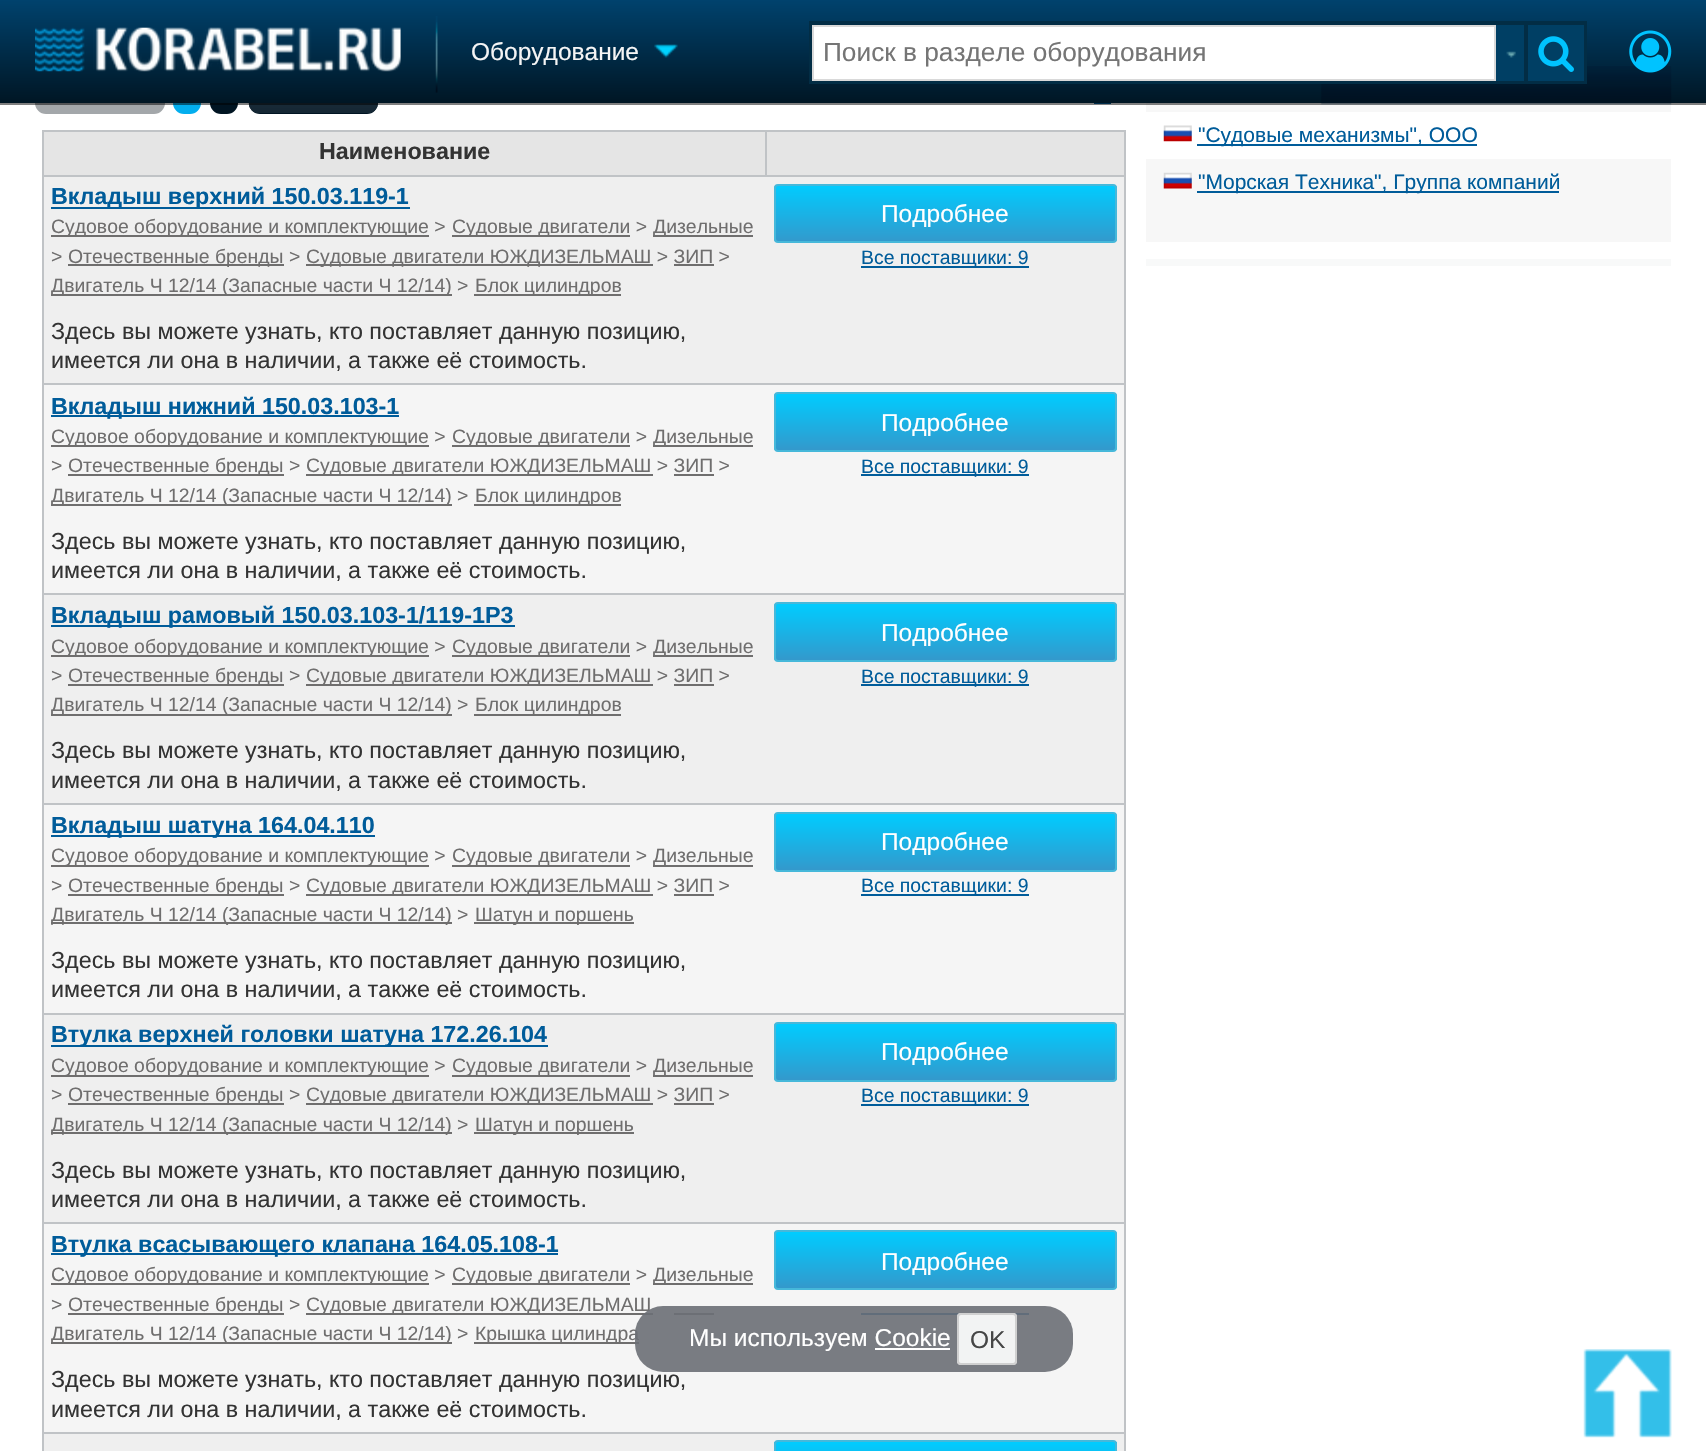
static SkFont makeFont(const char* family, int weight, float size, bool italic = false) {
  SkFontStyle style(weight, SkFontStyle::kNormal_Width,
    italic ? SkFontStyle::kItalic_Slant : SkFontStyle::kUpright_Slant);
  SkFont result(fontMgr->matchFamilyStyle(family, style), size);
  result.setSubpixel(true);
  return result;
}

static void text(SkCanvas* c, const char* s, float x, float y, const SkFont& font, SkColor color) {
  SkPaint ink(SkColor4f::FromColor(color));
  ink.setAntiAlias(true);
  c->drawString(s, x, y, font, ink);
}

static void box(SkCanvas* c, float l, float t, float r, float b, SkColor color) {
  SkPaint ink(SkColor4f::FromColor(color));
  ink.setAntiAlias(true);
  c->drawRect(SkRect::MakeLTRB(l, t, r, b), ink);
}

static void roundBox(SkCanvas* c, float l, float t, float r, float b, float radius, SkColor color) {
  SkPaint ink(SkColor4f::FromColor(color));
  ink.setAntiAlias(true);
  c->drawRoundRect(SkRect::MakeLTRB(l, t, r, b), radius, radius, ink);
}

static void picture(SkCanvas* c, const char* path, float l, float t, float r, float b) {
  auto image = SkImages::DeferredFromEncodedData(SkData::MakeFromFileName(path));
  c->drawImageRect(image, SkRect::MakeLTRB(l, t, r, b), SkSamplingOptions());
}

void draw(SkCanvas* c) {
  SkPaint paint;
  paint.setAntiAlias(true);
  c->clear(0xffffffff);
  roundBox(c, 35, 79, 165, 114, 11, 0xffa3a7aa);
  roundBox(c, 173, 79, 201, 114, 11, 0xff03aeee);
  roundBox(c, 210, 79, 238, 114, 11, 0xff001422);
  roundBox(c, 249, 79, 378, 114, 11, 0xff001422);
  picture(c, "img_08.png", 248, 103, 378, 113);
  box(c, 1094, 103, 1111, 104, 0xff005c9a);
  box(c, 1146, 103, 1671, 242, 0xfff7f7f7);
  box(c, 0, 103, 1706, 105, 0x80000000);
  {
    const SkColor colors[] = {0xff00426d, 0xff001624};
    const float stops[] = {0, 1};
    const SkPoint ends[] = {{853, 0}, {853, 103}};
    paint.setShader(SkGradientShader::MakeLinear(ends, colors, stops, 2, SkTileMode::kClamp));
    paint.setAlpha(255);
  }
  c->drawRect(SkRect::MakeLTRB(0, 0, 1706, 103), paint);
  picture(c, "img_01.png", 35, 27, 401, 72);
  picture(c, "img_02.png", 435, 16, 438, 93);
  SkFont face1 = makeFont("Liberation Sans", 400, 24.5f);
  text(c, "Оборудование", 471, 60, face1, 0xfff5f5f5);
  picture(c, "img_03.png", 654, 44, 678, 58);
  picture(c, "img_06.png", 1321, 66, 1672, 105);
  box(c, 809, 21, 1587, 84, 0xff022d45);
  paint.setShader(nullptr);
  paint.setColor(0xffffffff);
  c->drawRect(SkRect::MakeLTRB(813, 26, 1495, 80), paint);
  paint.setStyle(SkPaint::kStroke_Style);
  paint.setStrokeWidth(2);
  paint.setColor(0xffd9d9d9);
  c->drawRect(SkRect::MakeLTRB(813, 26, 1495, 80), paint);
  SkFont face2 = makeFont("Liberation Sans", 400, 26.25f);
  text(c, "Поиск в разделе оборудования", 823, 61, face2, 0xff757575);
  box(c, 1496, 25, 1524, 81, 0xff003f64);
  picture(c, "img_04.png", 1506, 51, 1516, 58);
  box(c, 1528, 25, 1584, 81, 0xff003f64);
  picture(c, "img_05.png", 1538, 36, 1574, 72);
  picture(c, "img_07.png", 1629, 30, 1672, 73);
  box(c, 42, 130, 1125, 132, 0xffc0c3c6);
  box(c, 1124, 130, 1126, 1451, 0xffc0c3c6);
  box(c, 42, 130, 44, 1451, 0xffc0c3c6);
  box(c, 44, 132, 1124, 175, 0xffe5e5e5);
  box(c, 42, 175, 1125, 177, 0xffc0c3c6);
  SkFont face3 = makeFont("Liberation Sans", 700, 23.3f);
  text(c, "Наименование", 319, 159, face3, 0xff333333);
  box(c, 765, 130, 767, 177, 0xffc0c3c6);
  box(c, 44, 177, 1124, 383, 0xffefefef);
  box(c, 51, 207, 410, 209, 0xff005c9a);
  text(c, "Вкладыш верхний 150.03.119-1", 51, 204, face3, 0xff005c9a);
  box(c, 51, 235, 429, 237, 0xff6f6e6e);
  SkFont face4 = makeFont("Liberation Sans", 400, 19.4f);
  text(c, "Судовое оборудование и комплектующие >", 51, 233, face4, 0xff6f6e6e);
  box(c, 452, 235, 630, 237, 0xff6f6e6e);
  text(c, "Судовые двигатели >", 452, 233, face4, 0xff6f6e6e);
  box(c, 653, 235, 753, 237, 0xff6f6e6e);
  text(c, "Дизельные", 653, 233, face4, 0xff6f6e6e);
  text(c, ">", 51, 263, face4, 0xff6f6e6e);
  box(c, 68, 264, 284, 266, 0xff6f6e6e);
  text(c, "Отечественные бренды >", 68, 263, face4, 0xff6f6e6e);
  box(c, 306, 264, 653, 266, 0xff6f6e6e);
  text(c, "Судовые двигатели ЮЖДИЗЕЛЬМАШ > ЗИП >", 306, 263, face4, 0xff6f6e6e);
  box(c, 674, 264, 714, 266, 0xff6f6e6e);
  box(c, 51, 294, 452, 296, 0xff6f6e6e);
  text(c, "Двигатель Ч 12/14 (Запасные части Ч 12/14) >", 51, 292, face4, 0xff6f6e6e);
  box(c, 474, 294, 621, 296, 0xff6f6e6e);
  text(c, "Блок цилиндров", 475, 292, face4, 0xff6f6e6e);
  SkFont face5 = makeFont("Liberation Sans", 400, 23.3f);
  text(c, "Здесь вы можете узнать, кто поставляет данную позицию,", 51, 339, face5, 0xff333333);
  text(c, "имеется ли она в наличии, а также её стоимость.", 51, 368, face5, 0xff333333);
  c->save();
  c->clipPath(SkPathBuilder().moveTo(778, 184).lineTo(1113, 184).cubicTo(1115, 184, 1117, 186, 1117, 188).lineTo(1117, 239).cubicTo(1117, 241, 1115, 243, 1113, 243).lineTo(778, 243).cubicTo(776, 243, 774, 241, 774, 239).lineTo(774, 188).cubicTo(774, 186, 776, 184, 778, 184).close().detach(), true);
  paint.setStyle(SkPaint::kFill_Style);
  {
    const SkColor colors[] = {0xff00ccff, 0xff3399cc};
    const float stops[] = {0, 1};
    const SkPoint ends[] = {{945, 185}, {945, 242}};
    paint.setShader(SkGradientShader::MakeLinear(ends, colors, stops, 2, SkTileMode::kClamp));
    paint.setAlpha(255);
  }
  c->drawRect(SkRect::MakeLTRB(774, 186, 1117, 242), paint);
  c->restore();
  paint.setStyle(SkPaint::kStroke_Style);
  paint.setShader(nullptr);
  paint.setColor(0xff46b8da);
  c->drawRoundRect(SkRect::MakeLTRB(775, 185, 1116, 242), 3, 3, paint);
  text(c, "Подробнее", 881, 222, face1, 0xffffffff);
  box(c, 861, 266, 1029, 268, 0xff005c9a);
  text(c, "Все поставщики: 9", 861, 264, face4, 0xff005c9a);
  box(c, 44, 385, 1124, 593, 0xfff5f5f5);
  box(c, 51, 415, 399, 417, 0xff005c9a);
  text(c, "Вкладыш нижний 150.03.103-1", 51, 414, face3, 0xff005c9a);
  box(c, 51, 445, 429, 447, 0xff6f6e6e);
  text(c, "Судовое оборудование и комплектующие >", 51, 443, face4, 0xff6f6e6e);
  box(c, 452, 445, 630, 447, 0xff6f6e6e);
  text(c, "Судовые двигатели >", 452, 443, face4, 0xff6f6e6e);
  box(c, 653, 445, 753, 447, 0xff6f6e6e);
  text(c, "Дизельные", 653, 443, face4, 0xff6f6e6e);
  text(c, ">", 51, 472, face4, 0xff6f6e6e);
  box(c, 68, 474, 284, 476, 0xff6f6e6e);
  text(c, "Отечественные бренды >", 68, 472, face4, 0xff6f6e6e);
  box(c, 306, 474, 653, 476, 0xff6f6e6e);
  text(c, "Судовые двигатели ЮЖДИЗЕЛЬМАШ > ЗИП >", 306, 472, face4, 0xff6f6e6e);
  box(c, 674, 474, 714, 476, 0xff6f6e6e);
  box(c, 51, 504, 452, 506, 0xff6f6e6e);
  text(c, "Двигатель Ч 12/14 (Запасные части Ч 12/14) >", 51, 502, face4, 0xff6f6e6e);
  box(c, 474, 504, 621, 506, 0xff6f6e6e);
  text(c, "Блок цилиндров", 475, 502, face4, 0xff6f6e6e);
  text(c, "Здесь вы можете узнать, кто поставляет данную позицию,", 51, 549, face5, 0xff333333);
  text(c, "имеется ли она в наличии, а также её стоимость.", 51, 578, face5, 0xff333333);
  box(c, 42, 383, 1125, 385, 0xffc0c3c6);
  c->save();
  c->clipPath(SkPathBuilder().moveTo(778, 392).lineTo(1113, 392).cubicTo(1115, 392, 1117, 394, 1117, 396).lineTo(1117, 448).cubicTo(1117, 450, 1115, 452, 1113, 452).lineTo(778, 452).cubicTo(776, 452, 774, 450, 774, 448).lineTo(774, 396).cubicTo(774, 394, 776, 392, 778, 392).close().detach(), true);
  paint.setStyle(SkPaint::kFill_Style);
  {
    const SkColor colors[] = {0xff00ccff, 0xff3399cc};
    const float stops[] = {0, 1};
    const SkPoint ends[] = {{945, 394}, {945, 450}};
    paint.setShader(SkGradientShader::MakeLinear(ends, colors, stops, 2, SkTileMode::kClamp));
    paint.setAlpha(255);
  }
  c->drawRect(SkRect::MakeLTRB(774, 394, 1117, 450), paint);
  c->restore();
  paint.setStyle(SkPaint::kStroke_Style);
  paint.setShader(nullptr);
  paint.setColor(0xff46b8da);
  c->drawRoundRect(SkRect::MakeLTRB(775, 393, 1116, 451), 3, 3, paint);
  text(c, "Подробнее", 881, 431, face1, 0xffffffff);
  box(c, 861, 474, 1029, 476, 0xff005c9a);
  text(c, "Все поставщики: 9", 861, 473, face4, 0xff005c9a);
  box(c, 44, 595, 1124, 803, 0xffefefef);
  box(c, 51, 625, 515, 627, 0xff005c9a);
  text(c, "Вкладыш рамовый 150.03.103-1/119-1Р3", 51, 623, face3, 0xff005c9a);
  box(c, 51, 655, 429, 657, 0xff6f6e6e);
  text(c, "Судовое оборудование и комплектующие >", 51, 653, face4, 0xff6f6e6e);
  box(c, 452, 655, 630, 657, 0xff6f6e6e);
  text(c, "Судовые двигатели >", 452, 653, face4, 0xff6f6e6e);
  box(c, 653, 655, 753, 657, 0xff6f6e6e);
  text(c, "Дизельные", 653, 653, face4, 0xff6f6e6e);
  text(c, ">", 51, 682, face4, 0xff6f6e6e);
  box(c, 68, 684, 284, 686, 0xff6f6e6e);
  text(c, "Отечественные бренды >", 68, 682, face4, 0xff6f6e6e);
  box(c, 306, 684, 653, 686, 0xff6f6e6e);
  text(c, "Судовые двигатели ЮЖДИЗЕЛЬМАШ > ЗИП >", 306, 682, face4, 0xff6f6e6e);
  box(c, 674, 684, 714, 686, 0xff6f6e6e);
  box(c, 51, 714, 452, 716, 0xff6f6e6e);
  text(c, "Двигатель Ч 12/14 (Запасные части Ч 12/14) >", 51, 711, face4, 0xff6f6e6e);
  box(c, 474, 714, 621, 716, 0xff6f6e6e);
  text(c, "Блок цилиндров", 475, 711, face4, 0xff6f6e6e);
  text(c, "Здесь вы можете узнать, кто поставляет данную позицию,", 51, 758, face5, 0xff333333);
  text(c, "имеется ли она в наличии, а также её стоимость.", 51, 788, face5, 0xff333333);
  box(c, 42, 593, 1125, 595, 0xffc0c3c6);
  c->save();
  c->clipPath(SkPathBuilder().moveTo(778, 602).lineTo(1113, 602).cubicTo(1115, 602, 1117, 604, 1117, 606).lineTo(1117, 658).cubicTo(1117, 660, 1115, 662, 1113, 662).lineTo(778, 662).cubicTo(776, 662, 774, 660, 774, 658).lineTo(774, 606).cubicTo(774, 604, 776, 602, 778, 602).close().detach(), true);
  paint.setStyle(SkPaint::kFill_Style);
  {
    const SkColor colors[] = {0xff00ccff, 0xff3399cc};
    const float stops[] = {0, 1};
    const SkPoint ends[] = {{945, 604}, {945, 660}};
    paint.setShader(SkGradientShader::MakeLinear(ends, colors, stops, 2, SkTileMode::kClamp));
    paint.setAlpha(255);
  }
  c->drawRect(SkRect::MakeLTRB(774, 604, 1117, 660), paint);
  c->restore();
  paint.setStyle(SkPaint::kStroke_Style);
  paint.setShader(nullptr);
  paint.setColor(0xff46b8da);
  c->drawRoundRect(SkRect::MakeLTRB(775, 603, 1116, 661), 3, 3, paint);
  text(c, "Подробнее", 881, 641, face1, 0xffffffff);
  box(c, 861, 684, 1029, 686, 0xff005c9a);
  text(c, "Все поставщики: 9", 861, 683, face4, 0xff005c9a);
  box(c, 44, 805, 1124, 1013, 0xfff5f5f5);
  box(c, 51, 835, 375, 837, 0xff005c9a);
  text(c, "Вкладыш шатуна 164.04.110", 51, 833, face3, 0xff005c9a);
  box(c, 51, 865, 429, 867, 0xff6f6e6e);
  text(c, "Судовое оборудование и комплектующие >", 51, 862, face4, 0xff6f6e6e);
  box(c, 452, 865, 630, 867, 0xff6f6e6e);
  text(c, "Судовые двигатели >", 452, 862, face4, 0xff6f6e6e);
  box(c, 653, 865, 753, 867, 0xff6f6e6e);
  text(c, "Дизельные", 653, 862, face4, 0xff6f6e6e);
  text(c, ">", 51, 892, face4, 0xff6f6e6e);
  box(c, 68, 894, 284, 896, 0xff6f6e6e);
  text(c, "Отечественные бренды >", 68, 892, face4, 0xff6f6e6e);
  box(c, 306, 894, 653, 896, 0xff6f6e6e);
  text(c, "Судовые двигатели ЮЖДИЗЕЛЬМАШ > ЗИП >", 306, 892, face4, 0xff6f6e6e);
  box(c, 674, 894, 714, 896, 0xff6f6e6e);
  box(c, 51, 922, 452, 924, 0xff6f6e6e);
  text(c, "Двигатель Ч 12/14 (Запасные части Ч 12/14) >", 51, 921, face4, 0xff6f6e6e);
  box(c, 474, 922, 634, 924, 0xff6f6e6e);
  text(c, "Шатун и поршень", 475, 921, face4, 0xff6f6e6e);
  text(c, "Здесь вы можете узнать, кто поставляет данную позицию,", 51, 968, face5, 0xff333333);
  text(c, "имеется ли она в наличии, а также её стоимость.", 51, 997, face5, 0xff333333);
  box(c, 42, 803, 1125, 805, 0xffc0c3c6);
  c->save();
  c->clipPath(SkPathBuilder().moveTo(778, 812).lineTo(1113, 812).cubicTo(1115, 812, 1117, 814, 1117, 816).lineTo(1117, 868).cubicTo(1117, 870, 1115, 872, 1113, 872).lineTo(778, 872).cubicTo(776, 872, 774, 870, 774, 868).lineTo(774, 816).cubicTo(774, 814, 776, 812, 778, 812).close().detach(), true);
  paint.setStyle(SkPaint::kFill_Style);
  {
    const SkColor colors[] = {0xff00ccff, 0xff3399cc};
    const float stops[] = {0, 1};
    const SkPoint ends[] = {{945, 814}, {945, 870}};
    paint.setShader(SkGradientShader::MakeLinear(ends, colors, stops, 2, SkTileMode::kClamp));
    paint.setAlpha(255);
  }
  c->drawRect(SkRect::MakeLTRB(774, 814, 1117, 870), paint);
  c->restore();
  paint.setStyle(SkPaint::kStroke_Style);
  paint.setShader(nullptr);
  paint.setColor(0xff46b8da);
  c->drawRoundRect(SkRect::MakeLTRB(775, 813, 1116, 871), 3, 3, paint);
  text(c, "Подробнее", 881, 850, face1, 0xffffffff);
  box(c, 861, 894, 1029, 896, 0xff005c9a);
  text(c, "Все поставщики: 9", 861, 892, face4, 0xff005c9a);
  box(c, 44, 1015, 1124, 1222, 0xffefefef);
  box(c, 51, 1045, 548, 1047, 0xff005c9a);
  text(c, "Втулка верхней головки шатуна 172.26.104", 51, 1042, face3, 0xff005c9a);
  box(c, 51, 1075, 429, 1077, 0xff6f6e6e);
  text(c, "Судовое оборудование и комплектующие >", 51, 1072, face4, 0xff6f6e6e);
  box(c, 452, 1075, 630, 1077, 0xff6f6e6e);
  text(c, "Судовые двигатели >", 452, 1072, face4, 0xff6f6e6e);
  box(c, 653, 1075, 753, 1077, 0xff6f6e6e);
  text(c, "Дизельные", 653, 1072, face4, 0xff6f6e6e);
  text(c, ">", 51, 1101, face4, 0xff6f6e6e);
  box(c, 68, 1103, 284, 1105, 0xff6f6e6e);
  text(c, "Отечественные бренды >", 68, 1101, face4, 0xff6f6e6e);
  box(c, 306, 1103, 653, 1105, 0xff6f6e6e);
  text(c, "Судовые двигатели ЮЖДИЗЕЛЬМАШ > ЗИП >", 306, 1101, face4, 0xff6f6e6e);
  box(c, 674, 1103, 714, 1105, 0xff6f6e6e);
  box(c, 51, 1132, 452, 1134, 0xff6f6e6e);
  text(c, "Двигатель Ч 12/14 (Запасные части Ч 12/14) >", 51, 1131, face4, 0xff6f6e6e);
  box(c, 474, 1132, 634, 1134, 0xff6f6e6e);
  text(c, "Шатун и поршень", 475, 1131, face4, 0xff6f6e6e);
  text(c, "Здесь вы можете узнать, кто поставляет данную позицию,", 51, 1178, face5, 0xff333333);
  text(c, "имеется ли она в наличии, а также её стоимость.", 51, 1207, face5, 0xff333333);
  box(c, 42, 1013, 1125, 1015, 0xffc0c3c6);
  c->save();
  c->clipPath(SkPathBuilder().moveTo(778, 1022).lineTo(1113, 1022).cubicTo(1115, 1022, 1117, 1024, 1117, 1026).lineTo(1117, 1078).cubicTo(1117, 1080, 1115, 1082, 1113, 1082).lineTo(778, 1082).cubicTo(776, 1082, 774, 1080, 774, 1078).lineTo(774, 1026).cubicTo(774, 1024, 776, 1022, 778, 1022).close().detach(), true);
  paint.setStyle(SkPaint::kFill_Style);
  {
    const SkColor colors[] = {0xff00ccff, 0xff3399cc};
    const float stops[] = {0, 1};
    const SkPoint ends[] = {{945, 1024}, {945, 1080}};
    paint.setShader(SkGradientShader::MakeLinear(ends, colors, stops, 2, SkTileMode::kClamp));
    paint.setAlpha(255);
  }
  c->drawRect(SkRect::MakeLTRB(774, 1024, 1117, 1080), paint);
  c->restore();
  paint.setStyle(SkPaint::kStroke_Style);
  paint.setShader(nullptr);
  paint.setColor(0xff46b8da);
  c->drawRoundRect(SkRect::MakeLTRB(775, 1023, 1116, 1081), 3, 3, paint);
  text(c, "Подробнее", 881, 1060, face1, 0xffffffff);
  box(c, 861, 1104, 1029, 1106, 0xff005c9a);
  text(c, "Все поставщики: 9", 861, 1102, face4, 0xff005c9a);
  box(c, 44, 1224, 1124, 1432, 0xfff5f5f5);
  box(c, 51, 1253, 558, 1255, 0xff005c9a);
  text(c, "Втулка всасывающего клапана 164.05.108-1", 51, 1252, face3, 0xff005c9a);
  box(c, 51, 1283, 429, 1285, 0xff6f6e6e);
  text(c, "Судовое оборудование и комплектующие >", 51, 1281, face4, 0xff6f6e6e);
  box(c, 452, 1283, 630, 1285, 0xff6f6e6e);
  text(c, "Судовые двигатели >", 452, 1281, face4, 0xff6f6e6e);
  box(c, 653, 1283, 753, 1285, 0xff6f6e6e);
  text(c, "Дизельные", 653, 1281, face4, 0xff6f6e6e);
  text(c, ">", 51, 1311, face4, 0xff6f6e6e);
  box(c, 68, 1313, 284, 1315, 0xff6f6e6e);
  text(c, "Отечественные бренды >", 68, 1311, face4, 0xff6f6e6e);
  box(c, 306, 1313, 653, 1315, 0xff6f6e6e);
  text(c, "Судовые двигатели ЮЖДИЗЕЛЬМАШ", 306, 1311, face4, 0xff6f6e6e);
  box(c, 674, 1313, 714, 1315, 0xff6f6e6e);
  box(c, 51, 1342, 452, 1344, 0xff6f6e6e);
  text(c, "Двигатель Ч 12/14 (Запасные части Ч 12/14) >", 51, 1340, face4, 0xff6f6e6e);
  box(c, 474, 1342, 639, 1344, 0xff6f6e6e);
  text(c, "Крышка цилиндра", 475, 1340, face4, 0xff6f6e6e);
  text(c, "Здесь вы можете узнать, кто поставляет данную позицию,", 51, 1387, face5, 0xff333333);
  text(c, "имеется ли она в наличии, а также её стоимость.", 51, 1417, face5, 0xff333333);
  box(c, 42, 1222, 1125, 1224, 0xffc0c3c6);
  c->save();
  c->clipPath(SkPathBuilder().moveTo(778, 1230).lineTo(1113, 1230).cubicTo(1115, 1230, 1117, 1232, 1117, 1234).lineTo(1117, 1286).cubicTo(1117, 1288, 1115, 1290, 1113, 1290).lineTo(778, 1290).cubicTo(776, 1290, 774, 1288, 774, 1286).lineTo(774, 1234).cubicTo(774, 1232, 776, 1230, 778, 1230).close().detach(), true);
  paint.setStyle(SkPaint::kFill_Style);
  {
    const SkColor colors[] = {0xff00ccff, 0xff3399cc};
    const float stops[] = {0, 1};
    const SkPoint ends[] = {{945, 1232}, {945, 1288}};
    paint.setShader(SkGradientShader::MakeLinear(ends, colors, stops, 2, SkTileMode::kClamp));
    paint.setAlpha(255);
  }
  c->drawRect(SkRect::MakeLTRB(774, 1232, 1117, 1288), paint);
  c->restore();
  paint.setStyle(SkPaint::kStroke_Style);
  paint.setShader(nullptr);
  paint.setColor(0xff46b8da);
  c->drawRoundRect(SkRect::MakeLTRB(775, 1231, 1116, 1289), 3, 3, paint);
  text(c, "Подробнее", 881, 1270, face1, 0xffffffff);
  box(c, 861, 1313, 1029, 1315, 0xff005c9a);
  box(c, 44, 1434, 1124, 1451, 0xffefefef);
  box(c, 42, 1432, 1125, 1434, 0xffc0c3c6);
  paint.setStyle(SkPaint::kFill_Style);
  {
    const SkColor colors[] = {0xff00ccff, 0xff3399cc};
    const float stops[] = {0, 1};
    const SkPoint ends[] = {{945, 1442}, {945, 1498}};
    paint.setShader(SkGradientShader::MakeLinear(ends, colors, stops, 2, SkTileMode::kClamp));
    paint.setAlpha(255);
  }
  c->drawRect(SkRect::MakeLTRB(774, 1442, 1117, 1451), paint);
  paint.setStyle(SkPaint::kStroke_Style);
  paint.setShader(nullptr);
  paint.setColor(0xff46b8da);
  c->drawRoundRect(SkRect::MakeLTRB(775, 1441, 1116, 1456), 3, 3, paint);
  box(c, 1146, 112, 1671, 159, 0xffffffff);
  picture(c, "img_09.png", 1163, 125, 1192, 142);
  box(c, 1197, 144, 1477, 146, 0xff005c9a);
  SkFont face6 = makeFont("Liberation Sans", 400, 21);
  text(c, "\"Судовые механизмы\", ООО", 1198, 142, face6, 0xff005c9a);
  picture(c, "img_10.png", 1163, 172, 1192, 189);
  box(c, 1197, 191, 1559, 193, 0xff005c9a);
  text(c, "\"Морская Техника\", Группа компаний", 1198, 189, face6, 0xff005c9a);
  box(c, 1146, 259, 1671, 266, 0xfff8f9f9);
  roundBox(c, 635, 1306, 1073, 1372, 28, 0xe66c6f76);
  text(c, "Мы используем Cookie", 689, 1346, face1, 0xffffffff);
  roundBox(c, 957, 1313, 1017, 1365, 4, 0xe6ffffff);
  paint.setColor(0xe6cccccc);
  c->drawRoundRect(SkRect::MakeLTRB(958, 1314, 1016, 1364), 3, 3, paint);
  text(c, "OK", 970, 1348, face1, 0xff464646);
  box(c, 875, 1348, 950, 1350, 0xfffefefe);
  picture(c, "img_11.png", 1583, 1349, 1672, 1438);
}
